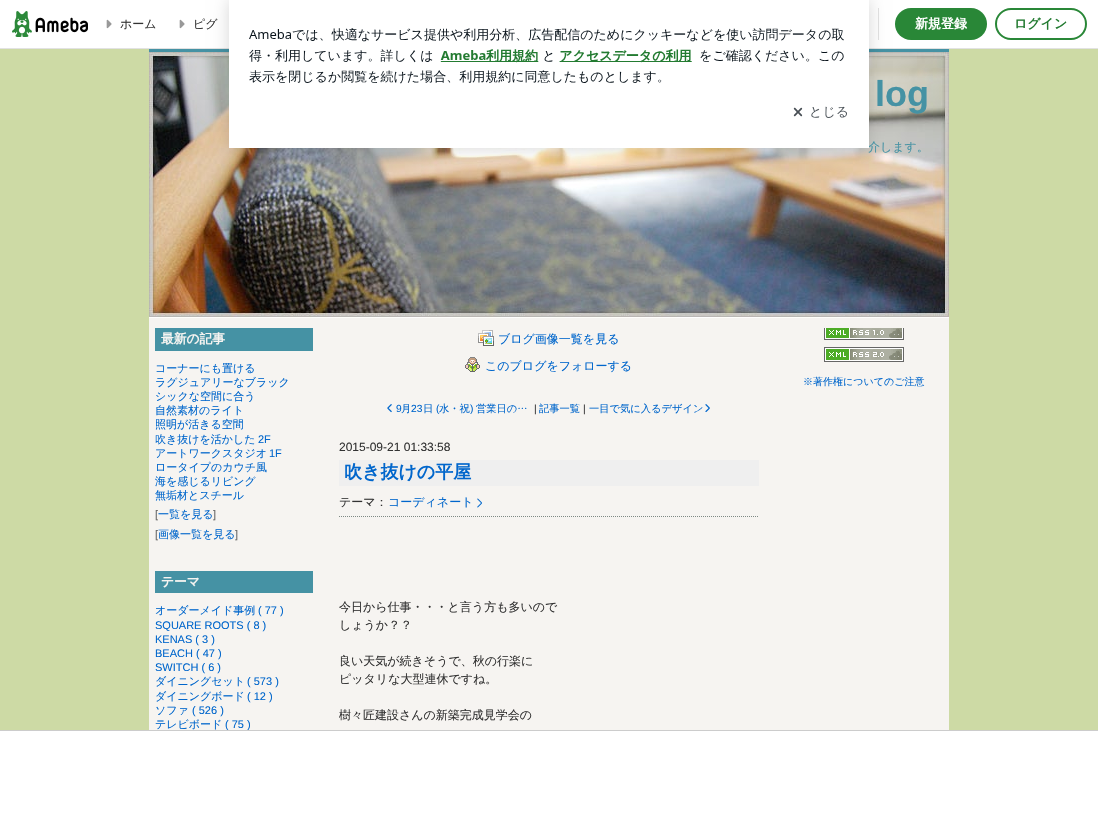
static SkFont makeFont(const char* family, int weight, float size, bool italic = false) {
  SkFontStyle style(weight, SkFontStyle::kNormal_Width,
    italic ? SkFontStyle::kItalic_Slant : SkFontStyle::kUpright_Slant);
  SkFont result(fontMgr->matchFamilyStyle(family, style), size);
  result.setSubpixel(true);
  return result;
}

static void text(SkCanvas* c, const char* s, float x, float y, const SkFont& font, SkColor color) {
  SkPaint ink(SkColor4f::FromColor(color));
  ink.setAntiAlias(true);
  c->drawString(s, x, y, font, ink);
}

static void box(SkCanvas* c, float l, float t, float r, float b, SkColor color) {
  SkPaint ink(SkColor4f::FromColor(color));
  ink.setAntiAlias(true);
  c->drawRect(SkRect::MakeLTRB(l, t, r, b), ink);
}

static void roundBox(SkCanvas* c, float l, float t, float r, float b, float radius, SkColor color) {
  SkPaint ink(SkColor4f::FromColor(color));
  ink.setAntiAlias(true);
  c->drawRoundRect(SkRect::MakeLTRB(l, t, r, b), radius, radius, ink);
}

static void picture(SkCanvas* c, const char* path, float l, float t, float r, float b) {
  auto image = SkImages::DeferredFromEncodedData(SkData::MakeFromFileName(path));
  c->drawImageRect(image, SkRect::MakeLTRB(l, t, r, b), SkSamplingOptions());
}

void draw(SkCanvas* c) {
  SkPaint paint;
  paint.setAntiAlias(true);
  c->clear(0xffcddaa5);
  box(c, 0, 0, 1098, 48, 0xffffffff);
  box(c, 0, 48, 1098, 49, 0xffe2e2e2);
  box(c, 878, 8, 879, 40, 0xffe2e2e2);
  box(c, 149, 49, 949, 52, 0xff4592a4);
  picture(c, "img_04.png", 149, 52, 949, 318);
  c->save();
  c->clipPath(SkPathBuilder(SkPathFillType::kEvenOdd).moveTo(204, 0).lineTo(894, 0).lineTo(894, 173).lineTo(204, 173).close().moveTo(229, 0).lineTo(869, 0).lineTo(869, 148).lineTo(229, 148).close().detach(), true);
  paint.setColor(0x29000000);
  paint.setMaskFilter(SkMaskFilter::MakeBlur(kNormal_SkBlurStyle, 8));
  c->drawRect(SkRect::MakeLTRB(229, 0, 869, 148), paint);
  paint.setMaskFilter(nullptr);
  c->restore();
  SkFont face1 = makeFont("WenQuanYi Zen Hei", 500, 12);
  text(c, "介します。", 868, 151, face1, 0xff4592a4);
  picture(c, "img_01.png", 229, 16, 869, 148);
  picture(c, "img_02.png", 12, 11, 88, 37);
  picture(c, "img_03.png", 106, 19, 112, 29);
  text(c, "ホーム", 120, 28, face1, 0xff333333);
  picture(c, "img_03.png", 179, 19, 185, 29);
  text(c, "ピグ", 193, 28, face1, 0xff333333);
  roundBox(c, 895, 8, 987, 40, 16, 0xff298737);
  SkFont face2 = makeFont("WenQuanYi Zen Hei", 700, 13);
  text(c, "新規登録", 915, 28, face2, 0xffffffff);
  paint.setStyle(SkPaint::kStroke_Style);
  paint.setStrokeWidth(2);
  paint.setColor(0xff298737);
  c->drawRoundRect(SkRect::MakeLTRB(996, 9, 1086, 39), 15, 15, paint);
  text(c, "ログイン", 1014, 28, face2, 0xff237b31);
  box(c, 149, 318, 949, 730, 0xfff6f4f1);
  SkFont face3 = makeFont("Liberation Sans", 700, 36);
  text(c, "log", 875, 106, face3, 0xff4592a4);
  box(c, 155, 328, 313, 351, 0xff4592a4);
  SkFont face4 = makeFont("WenQuanYi Zen Hei", 700, 12.75f);
  text(c, "最新の記事", 161, 343, face4, 0xfff6f4f1);
  SkFont face5 = makeFont("WenQuanYi Zen Hei", 500, 11);
  text(c, "コーナーにも置ける", 155, 372, face5, 0xff0066cc);
  text(c, "ラグジュアリーなブラック", 155, 386, face5, 0xff0066cc);
  text(c, "シックな空間に合う", 155, 400, face5, 0xff0066cc);
  text(c, "自然素材のライト", 155, 414, face5, 0xff0066cc);
  text(c, "照明が活きる空間", 155, 428, face5, 0xff0066cc);
  text(c, "吹き抜けを活かした", 155, 443, face5, 0xff0066cc);
  SkFont face6 = makeFont("Liberation Sans", 400, 11);
  text(c, "2F", 258, 443, face6, 0xff0066cc);
  text(c, "アートワークスタジオ", 155, 457, face5, 0xff0066cc);
  text(c, "1F", 269, 457, face6, 0xff0066cc);
  text(c, "ロータイプのカウチ風", 155, 471, face5, 0xff0066cc);
  text(c, "海を感じるリビング", 155, 485, face5, 0xff0066cc);
  text(c, "無垢材とスチール", 155, 499, face5, 0xff0066cc);
  text(c, "[", 155, 518, face6, 0xff666666);
  text(c, "一覧を見る", 158, 518, face5, 0xff0066cc);
  text(c, "]", 213, 518, face6, 0xff666666);
  text(c, "[", 155, 538, face6, 0xff666666);
  text(c, "画像一覧を見る", 158, 538, face5, 0xff0066cc);
  text(c, "]", 235, 538, face6, 0xff666666);
  box(c, 155, 571, 313, 593, 0xff4592a4);
  text(c, "テーマ", 161, 586, face4, 0xfff6f4f1);
  text(c, "オーダーメイド事例", 155, 614, face5, 0xff0066cc);
  text(c, "( 77 )", 258, 614, face6, 0xff0066cc);
  text(c, "SQUARE ROOTS ( 8 )", 155, 629, face6, 0xff0066cc);
  text(c, "KENAS ( 3 )", 155, 643, face6, 0xff0066cc);
  text(c, "BEACH ( 47 )", 155, 657, face6, 0xff0066cc);
  text(c, "SWITCH ( 6 )", 155, 671, face6, 0xff0066cc);
  text(c, "ダイニングセット", 155, 685, face5, 0xff0066cc);
  text(c, "( 573 )", 247, 685, face6, 0xff0066cc);
  text(c, "ダイニングボード", 155, 700, face5, 0xff0066cc);
  text(c, "( 12 )", 247, 700, face6, 0xff0066cc);
  text(c, "ソファ", 155, 714, face5, 0xff0066cc);
  text(c, "( 526 )", 192, 714, face6, 0xff0066cc);
  text(c, "テレビボード", 155, 728, face5, 0xff0066cc);
  text(c, "( 75 )", 225, 728, face6, 0xff0066cc);
  picture(c, "img_05.png", 478, 330, 494, 346);
  text(c, "ブログ画像一覧を見る", 498, 343, face1, 0xff0066cc);
  picture(c, "img_06.png", 465, 357, 480, 372);
  text(c, "このブログをフォローする", 485, 370, face1, 0xff0066cc);
  picture(c, "img_07.png", 387, 404, 392, 413);
  SkFont face7 = makeFont("Liberation Sans", 400, 10.25f);
  text(c, "9", 396, 412, face7, 0xff0066cc);
  SkFont face8 = makeFont("WenQuanYi Zen Hei", 500, 10.25f);
  text(c, "月", 401, 412, face8, 0xff0066cc);
  text(c, "23", 411, 412, face7, 0xff0066cc);
  text(c, "日", 423, 412, face8, 0xff0066cc);
  text(c, "(", 436, 412, face7, 0xff0066cc);
  text(c, "水・祝", 439, 412, face8, 0xff0066cc);
  text(c, ")", 470, 412, face7, 0xff0066cc);
  text(c, "営業日の…", 476, 412, face8, 0xff0066cc);
  text(c, "|", 534, 412, face7, 0xff333333);
  text(c, "記事一覧", 539, 412, face8, 0xff0066cc);
  text(c, "|", 583, 412, face7, 0xff333333);
  text(c, "一目で気に入るデザイン", 589, 412, face8, 0xff0066cc);
  picture(c, "img_08.png", 705, 404, 710, 412);
  SkFont face9 = makeFont("Liberation Sans", 400, 12);
  text(c, "2015-09-21 01:33:58", 339, 451, face9, 0xff333333);
  box(c, 339, 460, 759, 486, 0xffefefef);
  SkFont face10 = makeFont("WenQuanYi Zen Hei", 700, 18);
  text(c, "吹き抜けの平屋", 344, 478, face10, 0xff0066cc);
  paint.setStrokeWidth(1);
  paint.setColor(0xff7e8984);
  paint.setPathEffect(SkDashPathEffect::Make({{1, 1}}, 0));
  c->drawPath(SkPathBuilder().moveTo(339, 516.5f).lineTo(759, 516.5f).detach(), paint);
  paint.setPathEffect(nullptr);
  text(c, "テーマ：", 339, 506, face1, 0xff333333);
  text(c, "コーディネート", 388, 506, face1, 0xff0066cc);
  picture(c, "img_09.png", 477, 498, 482, 508);
  text(c, "今日から仕事・・・と言う方も多いので", 339, 611, face1, 0xff333333);
  text(c, "しょうか？？", 339, 629, face1, 0xff333333);
  text(c, "良い天気が続きそうで、秋の行楽に", 339, 665, face1, 0xff333333);
  text(c, "ピッタリな大型連休ですね。", 339, 683, face1, 0xff333333);
  text(c, "樹々匠建設さんの新築完成見学会の", 339, 719, face1, 0xff333333);
  picture(c, "img_10.png", 824, 328, 904, 340);
  picture(c, "img_11.png", 824, 347, 904, 362);
  SkFont face11 = makeFont("WenQuanYi Zen Hei", 500, 10);
  text(c, "※著作権についてのご注意", 803, 385, face11, 0xff0066cc);
  box(c, 0, 731, 1098, 821, 0xffffffff);
  box(c, 0, 730, 1098, 731, 0xffcccccc);
}
